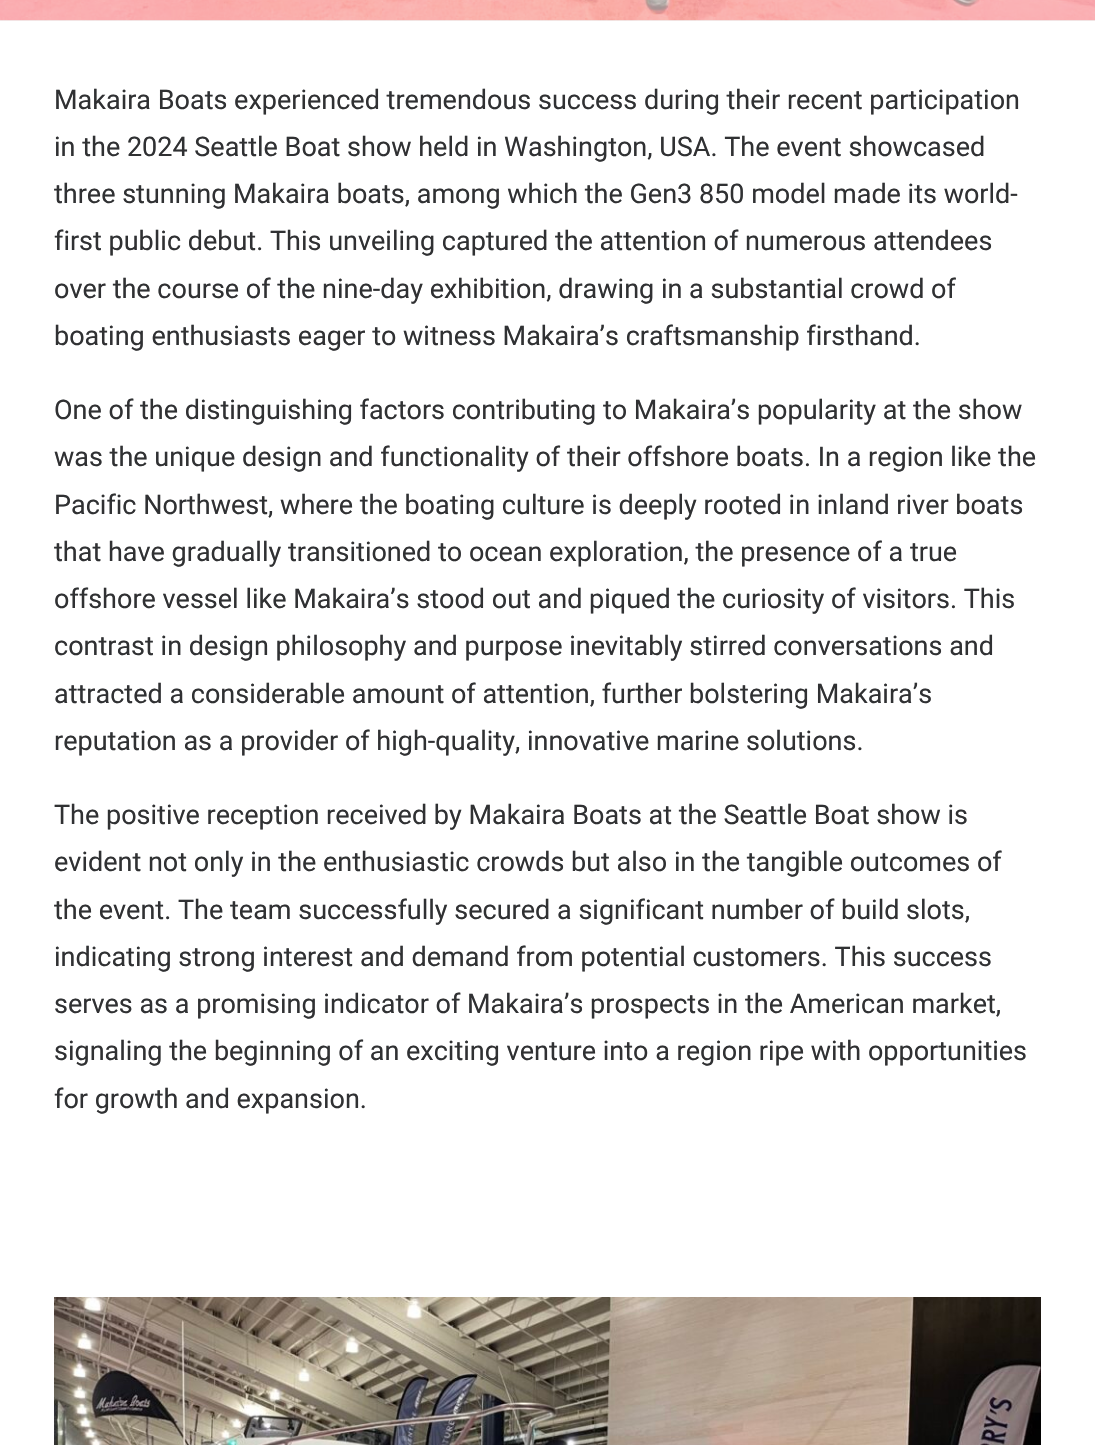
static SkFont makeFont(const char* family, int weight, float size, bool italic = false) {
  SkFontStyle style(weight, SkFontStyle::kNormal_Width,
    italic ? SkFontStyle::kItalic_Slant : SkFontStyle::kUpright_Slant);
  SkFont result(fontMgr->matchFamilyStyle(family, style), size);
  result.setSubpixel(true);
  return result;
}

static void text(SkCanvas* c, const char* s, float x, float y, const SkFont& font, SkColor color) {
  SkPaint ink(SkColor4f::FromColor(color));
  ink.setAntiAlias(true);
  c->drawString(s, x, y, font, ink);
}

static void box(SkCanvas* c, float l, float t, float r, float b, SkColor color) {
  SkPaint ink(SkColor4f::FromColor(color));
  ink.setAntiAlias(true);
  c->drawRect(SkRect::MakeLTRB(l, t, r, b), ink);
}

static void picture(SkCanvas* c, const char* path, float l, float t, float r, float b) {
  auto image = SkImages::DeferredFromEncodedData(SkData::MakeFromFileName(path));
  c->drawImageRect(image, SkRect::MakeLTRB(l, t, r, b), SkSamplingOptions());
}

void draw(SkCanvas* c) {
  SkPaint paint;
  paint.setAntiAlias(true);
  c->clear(0xfff2f2f2);
  picture(c, "img_01.png", 0, 0, 1095, 21);
  box(c, 0, 21, 1095, 1445, 0xffffffff);
  SkFont face1 = makeFont("Roboto", 400, 27);
  text(c, "Makaira Boats experienced tremendous success during their recent participation", 54, 109, face1, 0xff303133);
  text(c, "in the 2024 Seattle Boat show held in Washington, USA. The event showcased", 54, 156, face1, 0xff303133);
  text(c, "three stunning Makaira boats, among which the Gen3 850 model made its world-", 54, 203, face1, 0xff303133);
  text(c, "first public debut. This unveiling captured the attention of numerous attendees", 54, 250, face1, 0xff303133);
  text(c, "over the course of the nine-day exhibition, drawing in a substantial crowd of", 54, 298, face1, 0xff303133);
  text(c, "boating enthusiasts eager to witness Makaira’s craftsmanship firsthand.", 54, 345, face1, 0xff303133);
  text(c, "One of the distinguishing factors contributing to Makaira’s popularity at the show", 54, 419, face1, 0xff303133);
  text(c, "was the unique design and functionality of their offshore boats. In a region like the", 54, 466, face1, 0xff303133);
  text(c, "Pacific Northwest, where the boating culture is deeply rooted in inland river boats", 54, 514, face1, 0xff303133);
  text(c, "that have gradually transitioned to ocean exploration, the presence of a true", 54, 561, face1, 0xff303133);
  text(c, "offshore vessel like Makaira’s stood out and piqued the curiosity of visitors. This", 54, 608, face1, 0xff303133);
  text(c, "contrast in design philosophy and purpose inevitably stirred conversations and", 54, 655, face1, 0xff303133);
  text(c, "attracted a considerable amount of attention, further bolstering Makaira’s", 54, 703, face1, 0xff303133);
  text(c, "reputation as a provider of high-quality, innovative marine solutions.", 54, 750, face1, 0xff303133);
  text(c, "The positive reception received by Makaira Boats at the Seattle Boat show is", 54, 824, face1, 0xff303133);
  text(c, "evident not only in the enthusiastic crowds but also in the tangible outcomes of", 54, 871, face1, 0xff303133);
  text(c, "the event. The team successfully secured a significant number of build slots,", 54, 919, face1, 0xff303133);
  text(c, "indicating strong interest and demand from potential customers. This success", 54, 966, face1, 0xff303133);
  text(c, "serves as a promising indicator of Makaira’s prospects in the American market,", 54, 1013, face1, 0xff303133);
  text(c, "signaling the beginning of an exciting venture into a region ripe with opportunities", 54, 1060, face1, 0xff303133);
  text(c, "for growth and expansion.", 54, 1108, face1, 0xff303133);
  picture(c, "img_02.png", 54, 1297, 1041, 1445);
}
